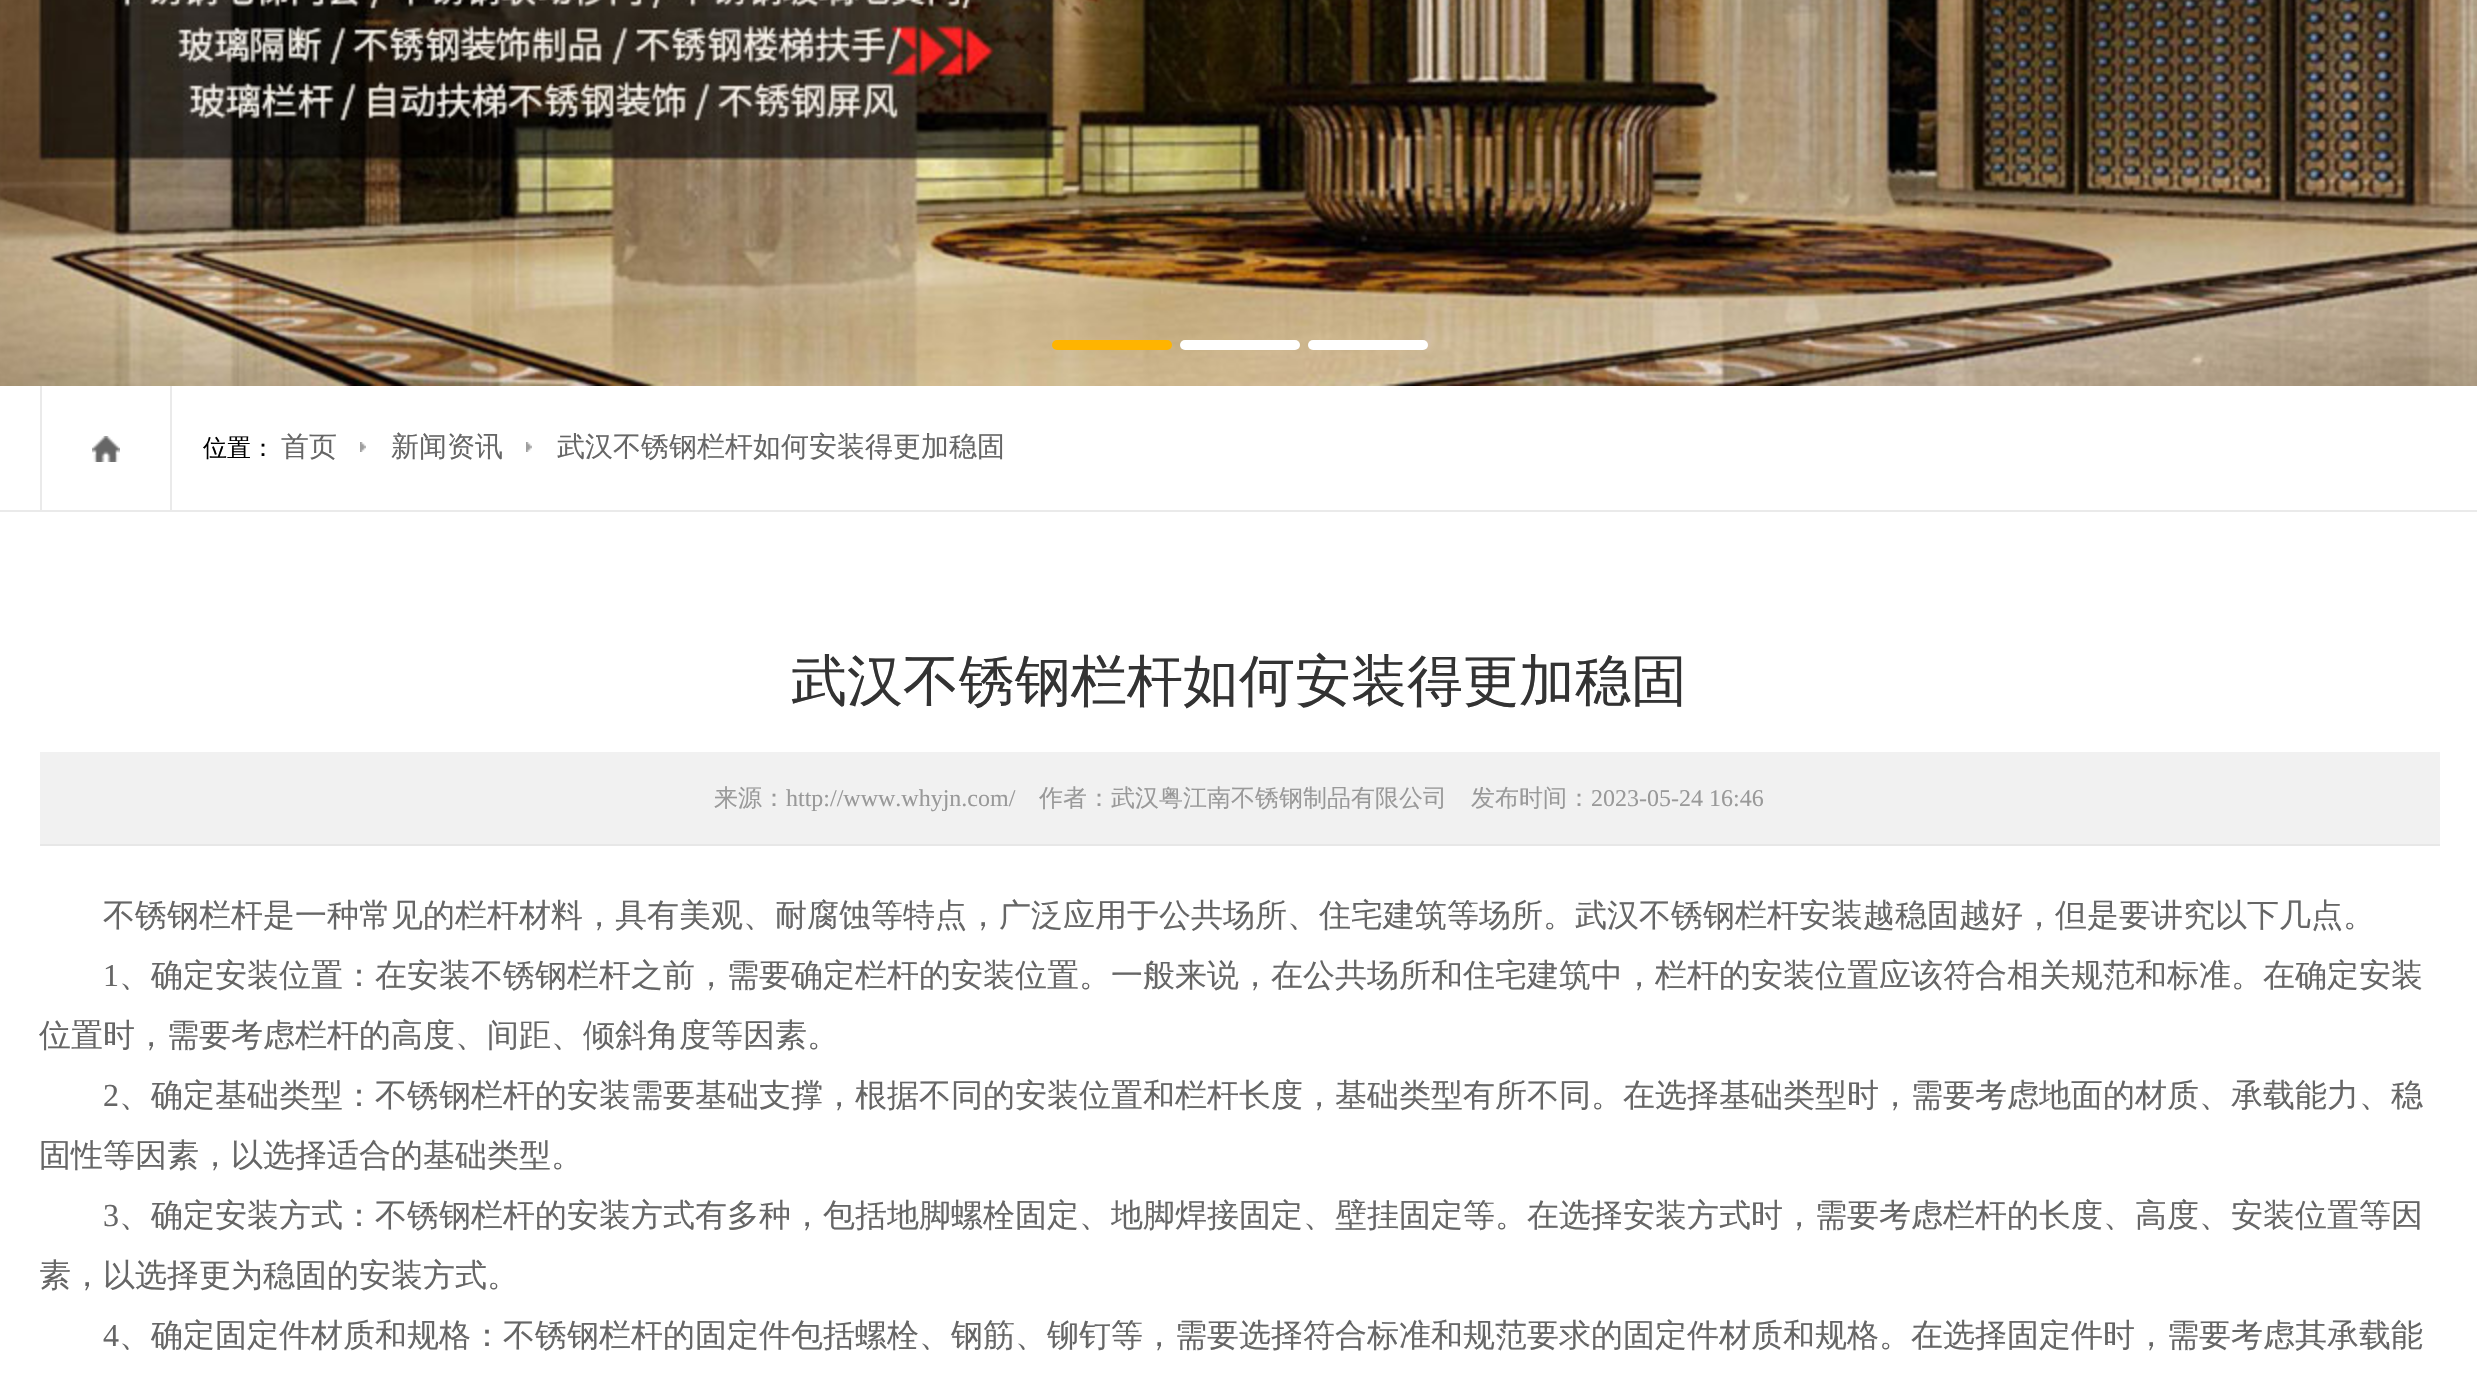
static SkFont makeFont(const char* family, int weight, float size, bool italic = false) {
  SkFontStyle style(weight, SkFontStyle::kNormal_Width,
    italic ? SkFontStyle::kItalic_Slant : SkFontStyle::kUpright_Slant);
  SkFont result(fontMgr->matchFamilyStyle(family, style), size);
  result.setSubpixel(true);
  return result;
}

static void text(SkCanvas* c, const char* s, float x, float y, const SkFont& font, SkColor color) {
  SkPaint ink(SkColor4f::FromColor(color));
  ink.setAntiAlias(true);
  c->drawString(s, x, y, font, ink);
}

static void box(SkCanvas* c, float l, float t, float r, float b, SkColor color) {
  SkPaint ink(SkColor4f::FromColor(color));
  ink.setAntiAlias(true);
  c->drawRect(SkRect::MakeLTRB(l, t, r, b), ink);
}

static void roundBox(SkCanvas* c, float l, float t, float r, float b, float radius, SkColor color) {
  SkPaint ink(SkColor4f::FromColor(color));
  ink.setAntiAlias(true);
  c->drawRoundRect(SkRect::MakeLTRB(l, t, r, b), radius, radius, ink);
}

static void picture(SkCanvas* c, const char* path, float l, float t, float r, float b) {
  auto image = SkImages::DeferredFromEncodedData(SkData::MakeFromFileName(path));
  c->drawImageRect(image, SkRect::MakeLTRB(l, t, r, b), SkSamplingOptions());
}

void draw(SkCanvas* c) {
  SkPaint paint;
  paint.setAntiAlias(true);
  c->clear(0xffffffff);
  picture(c, "img_01.png", 0, 0, 2477, 386);
  roundBox(c, 1052, 340, 1172, 350, 5, 0xffffb400);
  roundBox(c, 1180, 340, 1300, 350, 5, 0xffffffff);
  roundBox(c, 1308, 340, 1428, 350, 5, 0xffffffff);
  box(c, 0, 510, 2477, 512, 0xffeaeaea);
  picture(c, "img_02.png", 92, 436, 120, 462);
  box(c, 170, 386, 172, 510, 0xffeaeaea);
  box(c, 40, 386, 42, 510, 0xffeaeaea);
  SkFont face1 = makeFont("WenQuanYi Zen Hei", 500, 24);
  text(c, "位置：", 203, 456, face1, 0xff000000);
  SkFont face2 = makeFont("WenQuanYi Zen Hei", 500, 28);
  text(c, "首页", 281, 456, face2, 0xff666666);
  picture(c, "img_03.png", 360, 442, 366, 452);
  text(c, "新闻资讯", 391, 456, face2, 0xff666666);
  picture(c, "img_03.png", 526, 442, 532, 452);
  text(c, "武汉不锈钢栏杆如何安装得更加稳固", 557, 456, face2, 0xff666666);
  SkFont face3 = makeFont("WenQuanYi Zen Hei", 500, 56);
  text(c, "武汉不锈钢栏杆如何安装得更加稳固", 791, 700, face3, 0xff333333);
  box(c, 40, 752, 2440, 844, 0xfff1f1f1);
  box(c, 40, 844, 2440, 846, 0xffe7e7e7);
  text(c, "来源：", 714, 806, face1, 0xff999999);
  SkFont face4 = makeFont("Liberation Serif", 400, 24);
  text(c, "http://www.whyjn.com/", 786, 806, face4, 0xff999999);
  text(c, "作者：武汉粤江南不锈钢制品有限公司　发布时间：", 1039, 806, face1, 0xff999999);
  text(c, "2023-05-24 16:46", 1591, 806, face4, 0xff999999);
  SkFont face5 = makeFont("WenQuanYi Zen Hei", 500, 32);
  text(c, "不锈钢栏杆是一种常见的栏杆材料，具有美观、耐腐蚀等特点，广泛应用于公共场所、住宅建筑等场所。武汉不锈钢栏杆安装越稳固越好，但是要讲究以下几点。", 103, 926, face5, 0xff666666);
  SkFont face6 = makeFont("Liberation Serif", 400, 32);
  text(c, "1", 103, 986, face6, 0xff666666);
  text(c, "、确定安装位置：在安装不锈钢栏杆之前，需要确定栏杆的安装位置。一般来说，在公共场所和住宅建筑中，栏杆的安装位置应该符合相关规范和标准。在确定安装", 119, 986, face5, 0xff666666);
  text(c, "位置时，需要考虑栏杆的高度、间距、倾斜角度等因素。", 39, 1046, face5, 0xff666666);
  text(c, "2", 103, 1106, face6, 0xff666666);
  text(c, "、确定基础类型：不锈钢栏杆的安装需要基础支撑，根据不同的安装位置和栏杆长度，基础类型有所不同。在选择基础类型时，需要考虑地面的材质、承载能力、稳", 119, 1106, face5, 0xff666666);
  text(c, "固性等因素，以选择适合的基础类型。", 39, 1166, face5, 0xff666666);
  text(c, "3", 103, 1226, face6, 0xff666666);
  text(c, "、确定安装方式：不锈钢栏杆的安装方式有多种，包括地脚螺栓固定、地脚焊接固定、壁挂固定等。在选择安装方式时，需要考虑栏杆的长度、高度、安装位置等因", 119, 1226, face5, 0xff666666);
  text(c, "素，以选择更为稳固的安装方式。", 39, 1286, face5, 0xff666666);
  text(c, "4", 103, 1346, face6, 0xff666666);
  text(c, "、确定固定件材质和规格：不锈钢栏杆的固定件包括螺栓、钢筋、铆钉等，需要选择符合标准和规范要求的固定件材质和规格。在选择固定件时，需要考虑其承载能", 119, 1346, face5, 0xff666666);
}
